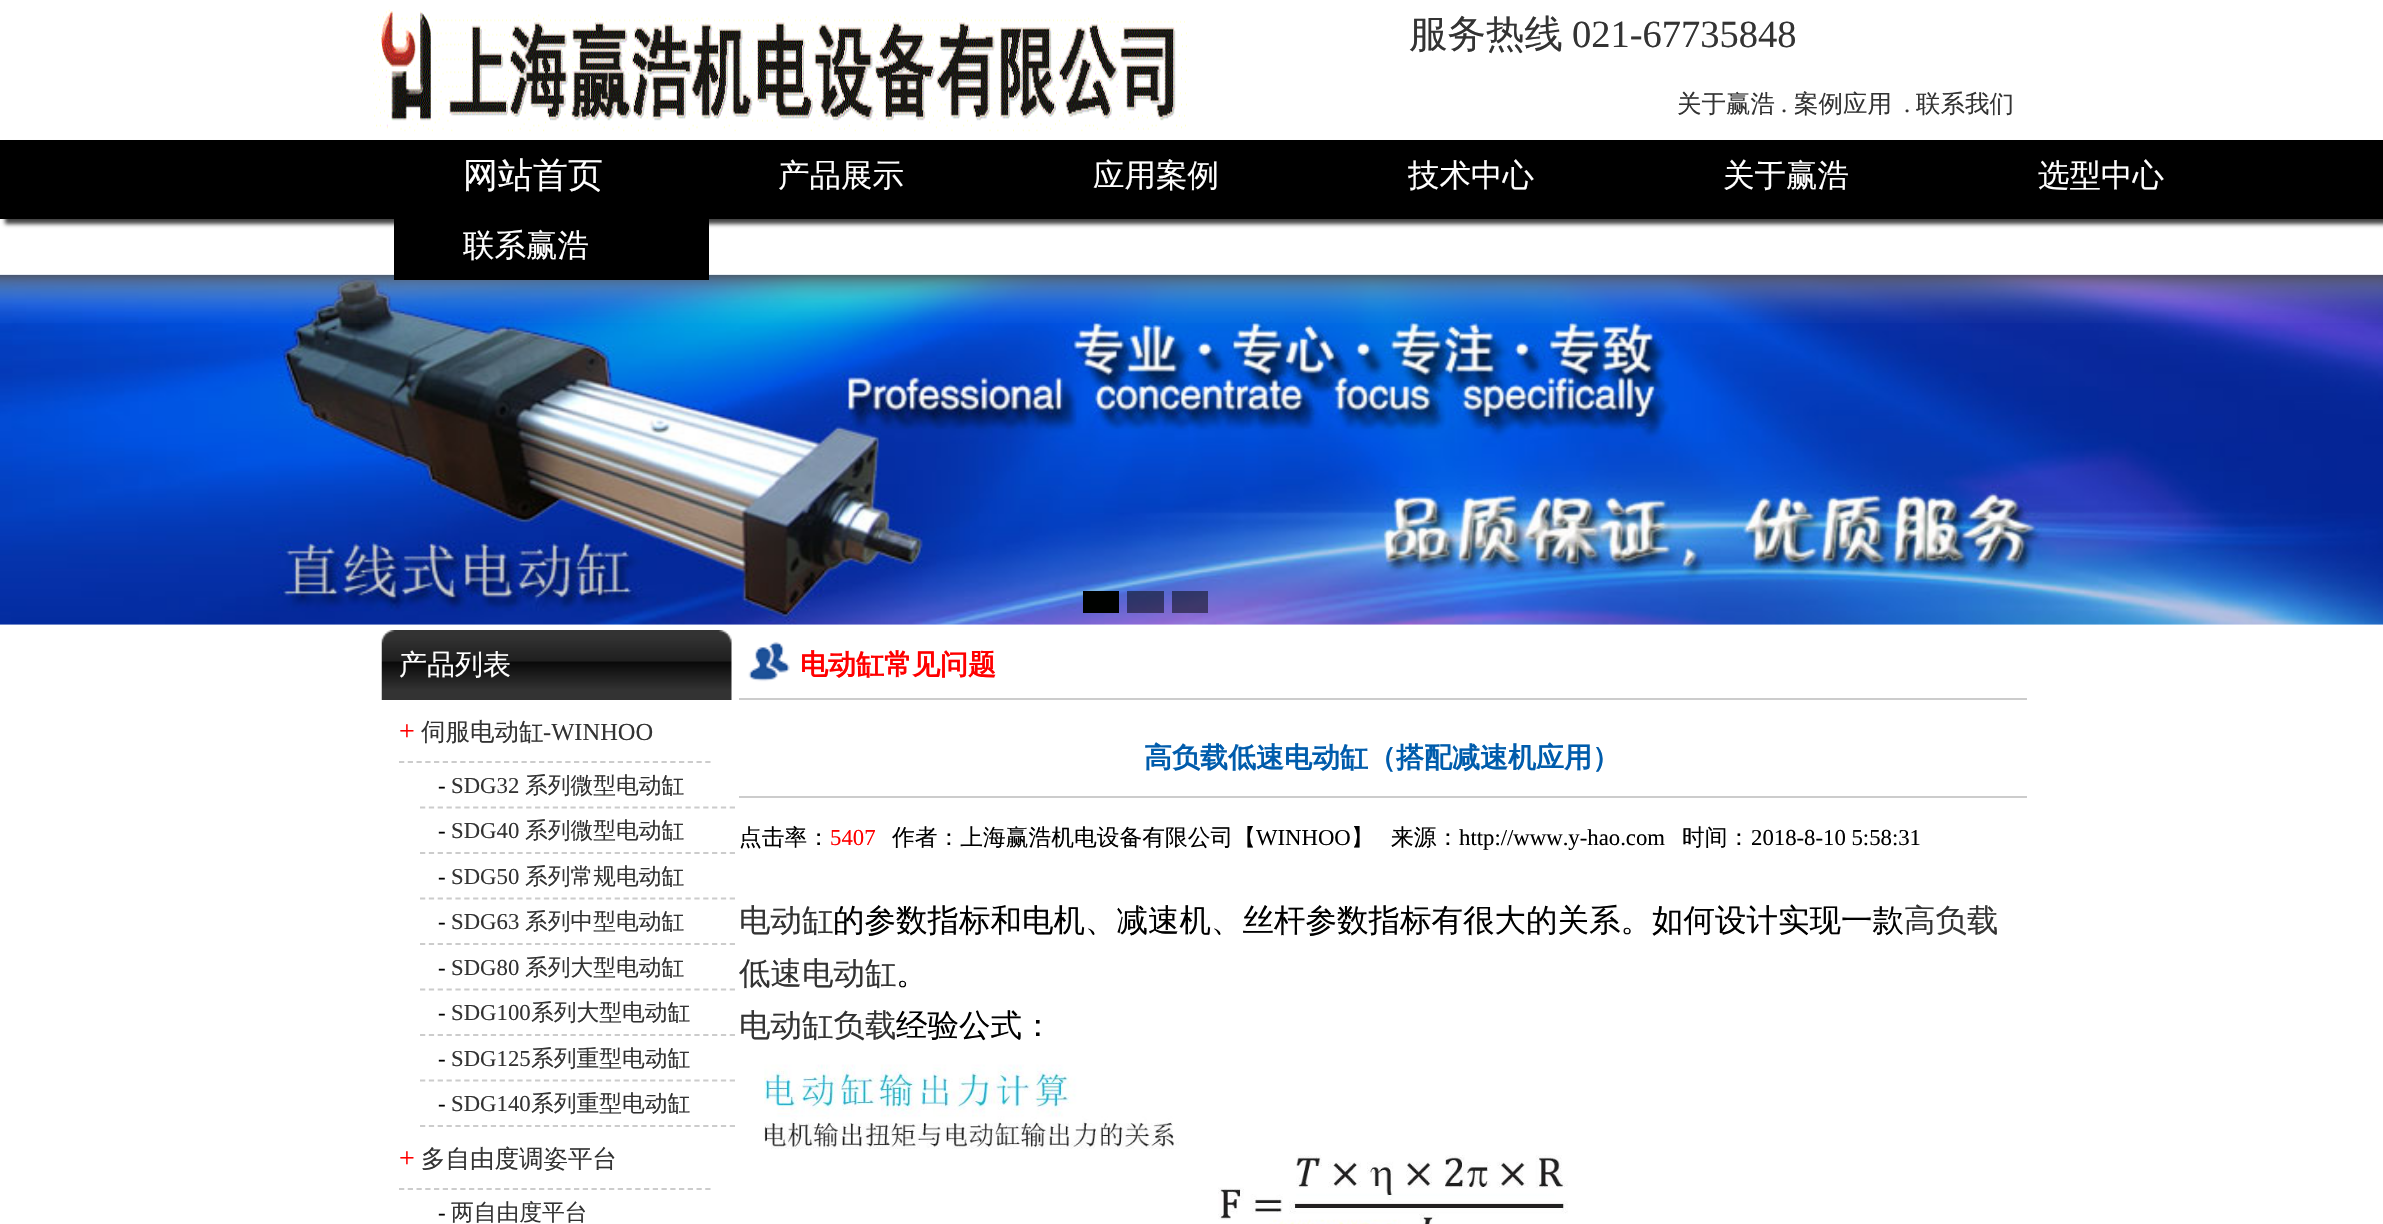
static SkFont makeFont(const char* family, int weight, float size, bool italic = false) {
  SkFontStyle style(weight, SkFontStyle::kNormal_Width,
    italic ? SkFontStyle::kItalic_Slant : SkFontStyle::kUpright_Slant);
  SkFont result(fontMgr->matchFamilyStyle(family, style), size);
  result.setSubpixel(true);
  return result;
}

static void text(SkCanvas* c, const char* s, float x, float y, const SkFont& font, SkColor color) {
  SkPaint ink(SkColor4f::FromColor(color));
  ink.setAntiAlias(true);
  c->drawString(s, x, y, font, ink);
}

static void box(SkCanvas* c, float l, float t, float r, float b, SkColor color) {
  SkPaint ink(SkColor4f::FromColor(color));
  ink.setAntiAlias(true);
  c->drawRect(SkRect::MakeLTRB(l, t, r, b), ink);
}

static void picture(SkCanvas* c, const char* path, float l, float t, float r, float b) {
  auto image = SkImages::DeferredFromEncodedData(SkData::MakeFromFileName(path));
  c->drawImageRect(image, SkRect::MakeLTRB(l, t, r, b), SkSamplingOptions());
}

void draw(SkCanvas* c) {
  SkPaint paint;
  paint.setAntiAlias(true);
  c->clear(0xffffffff);
  picture(c, "img_01.png", 373, 9, 1187, 132);
  SkFont face1 = makeFont("WenQuanYi Zen Hei", 500, 38.5f);
  text(c, "服务热线", 1409, 47, face1, 0xff333333);
  SkFont face2 = makeFont("Liberation Serif", 400, 38.5f);
  text(c, "021-67735848", 1572, 47, face2, 0xff333333);
  SkFont face3 = makeFont("WenQuanYi Zen Hei", 500, 24.5f);
  text(c, "关于赢浩", 1677, 112, face3, 0xff333333);
  SkFont face4 = makeFont("Liberation Serif", 400, 24.5f);
  text(c, ".", 1781, 112, face4, 0xff333333);
  text(c, "案例应用", 1794, 112, face3, 0xff333333);
  text(c, ".", 1904, 112, face4, 0xff333333);
  text(c, "联系我们", 1916, 112, face3, 0xff333333);
  paint.setColor(0xff444444);
  paint.setMaskFilter(SkMaskFilter::MakeBlur(kNormal_SkBlurStyle, 2));
  c->drawRect(SkRect::MakeLTRB(5, 145, 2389, 224), paint);
  paint.setMaskFilter(nullptr);
  box(c, 0, 140, 2383, 219, 0xff000000);
  SkFont face5 = makeFont("WenQuanYi Zen Hei", 500, 35);
  text(c, "网站首页", 463, 187, face5, 0xffffffff);
  SkFont face6 = makeFont("WenQuanYi Zen Hei", 500, 31.5f);
  text(c, "产品展示", 778, 186, face6, 0xffffffff);
  text(c, "应用案例", 1093, 186, face6, 0xffffffff);
  text(c, "技术中心", 1408, 186, face6, 0xffffffff);
  text(c, "关于赢浩", 1723, 186, face6, 0xffffffff);
  text(c, "选型中心", 2038, 186, face6, 0xffffffff);
  picture(c, "img_02.png", 0, 274, 2383, 625);
  picture(c, "img_03.png", 0, 274, 2383, 323);
  box(c, 394, 219, 709, 280, 0xff000000);
  text(c, "联系赢浩", 463, 256, face6, 0xffffffff);
  box(c, 1083, 591, 1119, 613, 0xff000200);
  box(c, 1127, 591, 1164, 613, 0x80000200);
  box(c, 1172, 591, 1208, 613, 0x80000200);
  picture(c, "img_04.png", 381, 630, 732, 700);
  SkFont face7 = makeFont("WenQuanYi Zen Hei", 500, 28);
  text(c, "产品列表", 399, 674, face7, 0xffffffff);
  paint.setStyle(SkPaint::kStroke_Style);
  paint.setStrokeWidth(1.8f);
  paint.setColor(0xffcccccc);
  paint.setPathEffect(SkDashPathEffect::Make({{5.25f, 3.5f}}, 0));
  c->drawPath(SkPathBuilder().moveTo(399, 762).lineTo(710.5f, 762).detach(), paint);
  paint.setPathEffect(nullptr);
  SkFont face8 = makeFont("Liberation Serif", 400, 28);
  text(c, "+", 399, 740, face8, 0xffff0000);
  text(c, "伺服电动缸", 421, 740, face3, 0xff333333);
  text(c, "-WINHOO", 543, 740, face4, 0xff333333);
  paint.setPathEffect(SkDashPathEffect::Make({{5.25f, 3.6f}}, 0));
  c->drawPath(SkPathBuilder().moveTo(420, 807.5f).lineTo(735, 807.5f).detach(), paint);
  paint.setPathEffect(nullptr);
  SkFont face9 = makeFont("Liberation Serif", 400, 22.75f);
  text(c, "-", 438, 793, face9, 0xff000000);
  text(c, "SDG32", 451, 793, face9, 0xff333333);
  SkFont face10 = makeFont("WenQuanYi Zen Hei", 500, 22.75f);
  text(c, "系列微型电动缸", 525, 793, face10, 0xff333333);
  paint.setPathEffect(SkDashPathEffect::Make({{5.25f, 3.6f}}, 0));
  c->drawPath(SkPathBuilder().moveTo(420, 853).lineTo(735, 853).detach(), paint);
  paint.setPathEffect(nullptr);
  text(c, "-", 438, 838, face9, 0xff000000);
  text(c, "SDG40", 451, 838, face9, 0xff333333);
  text(c, "系列微型电动缸", 525, 838, face10, 0xff333333);
  paint.setPathEffect(SkDashPathEffect::Make({{5.25f, 3.6f}}, 0));
  c->drawPath(SkPathBuilder().moveTo(420, 898.5f).lineTo(735, 898.5f).detach(), paint);
  paint.setPathEffect(nullptr);
  text(c, "-", 438, 884, face9, 0xff000000);
  text(c, "SDG50", 451, 884, face9, 0xff333333);
  text(c, "系列常规电动缸", 525, 884, face10, 0xff333333);
  paint.setPathEffect(SkDashPathEffect::Make({{5.25f, 3.6f}}, 0));
  c->drawPath(SkPathBuilder().moveTo(420, 944).lineTo(735, 944).detach(), paint);
  paint.setPathEffect(nullptr);
  text(c, "-", 438, 929, face9, 0xff000000);
  text(c, "SDG63", 451, 929, face9, 0xff333333);
  text(c, "系列中型电动缸", 525, 929, face10, 0xff333333);
  paint.setPathEffect(SkDashPathEffect::Make({{5.25f, 3.6f}}, 0));
  c->drawPath(SkPathBuilder().moveTo(420, 989.5f).lineTo(735, 989.5f).detach(), paint);
  paint.setPathEffect(nullptr);
  text(c, "-", 438, 975, face9, 0xff000000);
  text(c, "SDG80", 451, 975, face9, 0xff333333);
  text(c, "系列大型电动缸", 525, 975, face10, 0xff333333);
  paint.setPathEffect(SkDashPathEffect::Make({{5.25f, 3.6f}}, 0));
  c->drawPath(SkPathBuilder().moveTo(420, 1035).lineTo(735, 1035).detach(), paint);
  paint.setPathEffect(nullptr);
  text(c, "-", 438, 1020, face9, 0xff000000);
  text(c, "SDG100", 451, 1020, face9, 0xff333333);
  text(c, "系列大型电动缸", 531, 1020, face10, 0xff333333);
  paint.setPathEffect(SkDashPathEffect::Make({{5.25f, 3.6f}}, 0));
  c->drawPath(SkPathBuilder().moveTo(420, 1080.5f).lineTo(735, 1080.5f).detach(), paint);
  paint.setPathEffect(nullptr);
  text(c, "-", 438, 1066, face9, 0xff000000);
  text(c, "SDG125", 451, 1066, face9, 0xff333333);
  text(c, "系列重型电动缸", 531, 1066, face10, 0xff333333);
  paint.setPathEffect(SkDashPathEffect::Make({{5.25f, 3.6f}}, 0));
  c->drawPath(SkPathBuilder().moveTo(420, 1126).lineTo(735, 1126).detach(), paint);
  paint.setPathEffect(nullptr);
  text(c, "-", 438, 1111, face9, 0xff000000);
  text(c, "SDG140", 451, 1111, face9, 0xff333333);
  text(c, "系列重型电动缸", 531, 1111, face10, 0xff333333);
  paint.setPathEffect(SkDashPathEffect::Make({{5.25f, 3.5f}}, 0));
  c->drawPath(SkPathBuilder().moveTo(399, 1189).lineTo(710.5f, 1189).detach(), paint);
  paint.setPathEffect(nullptr);
  text(c, "+", 399, 1167, face8, 0xffff0000);
  text(c, "多自由度调姿平台", 421, 1167, face3, 0xff333333);
  text(c, "-", 438, 1220, face9, 0xff000000);
  text(c, "两自由度平台", 451, 1220, face10, 0xff333333);
  box(c, 739, 698, 2027, 700, 0xffcccccc);
  picture(c, "img_05.png", 748, 641, 790, 682);
  SkFont face11 = makeFont("WenQuanYi Zen Hei", 700, 28);
  text(c, "电动缸常见问题", 800, 674, face11, 0xffff0000);
  box(c, 739, 796, 2027, 798, 0xffcccccc);
  text(c, "高负载低速电动缸（搭配减速机应用）", 1144, 767, face11, 0xff005cac);
  text(c, "点击率：", 739, 845, face10, 0xff000000);
  text(c, "5407", 830, 845, face9, 0xffff0000);
  text(c, "作者：上海赢浩机电设备有限公司【", 892, 845, face10, 0xff000000);
  text(c, "WINHOO", 1256, 845, face9, 0xff000000);
  text(c, "】", 1351, 845, face10, 0xff000000);
  text(c, "来源：", 1391, 845, face10, 0xff000000);
  text(c, "http://www.y-hao.com", 1459, 845, face9, 0xff000000);
  text(c, "时间：", 1682, 845, face10, 0xff000000);
  text(c, "2018-8-10 5:58:31", 1751, 845, face9, 0xff000000);
  text(c, "电动缸", 739, 931, face6, 0xff333333);
  text(c, "的参数指标和电机、减速机、丝杆参数指标有很大的关系。如何设计实现一款", 833, 931, face6, 0xff000000);
  text(c, "高负载", 1904, 931, face6, 0xff333333);
  text(c, "低速电动缸", 739, 984, face6, 0xff333333);
  text(c, "。", 896, 984, face6, 0xff000000);
  text(c, "电动缸负载", 739, 1036, face6, 0xff333333);
  text(c, "经验公式：", 896, 1036, face6, 0xff000000);
  picture(c, "img_06.png", 764, 1064, 1568, 1224);
}
